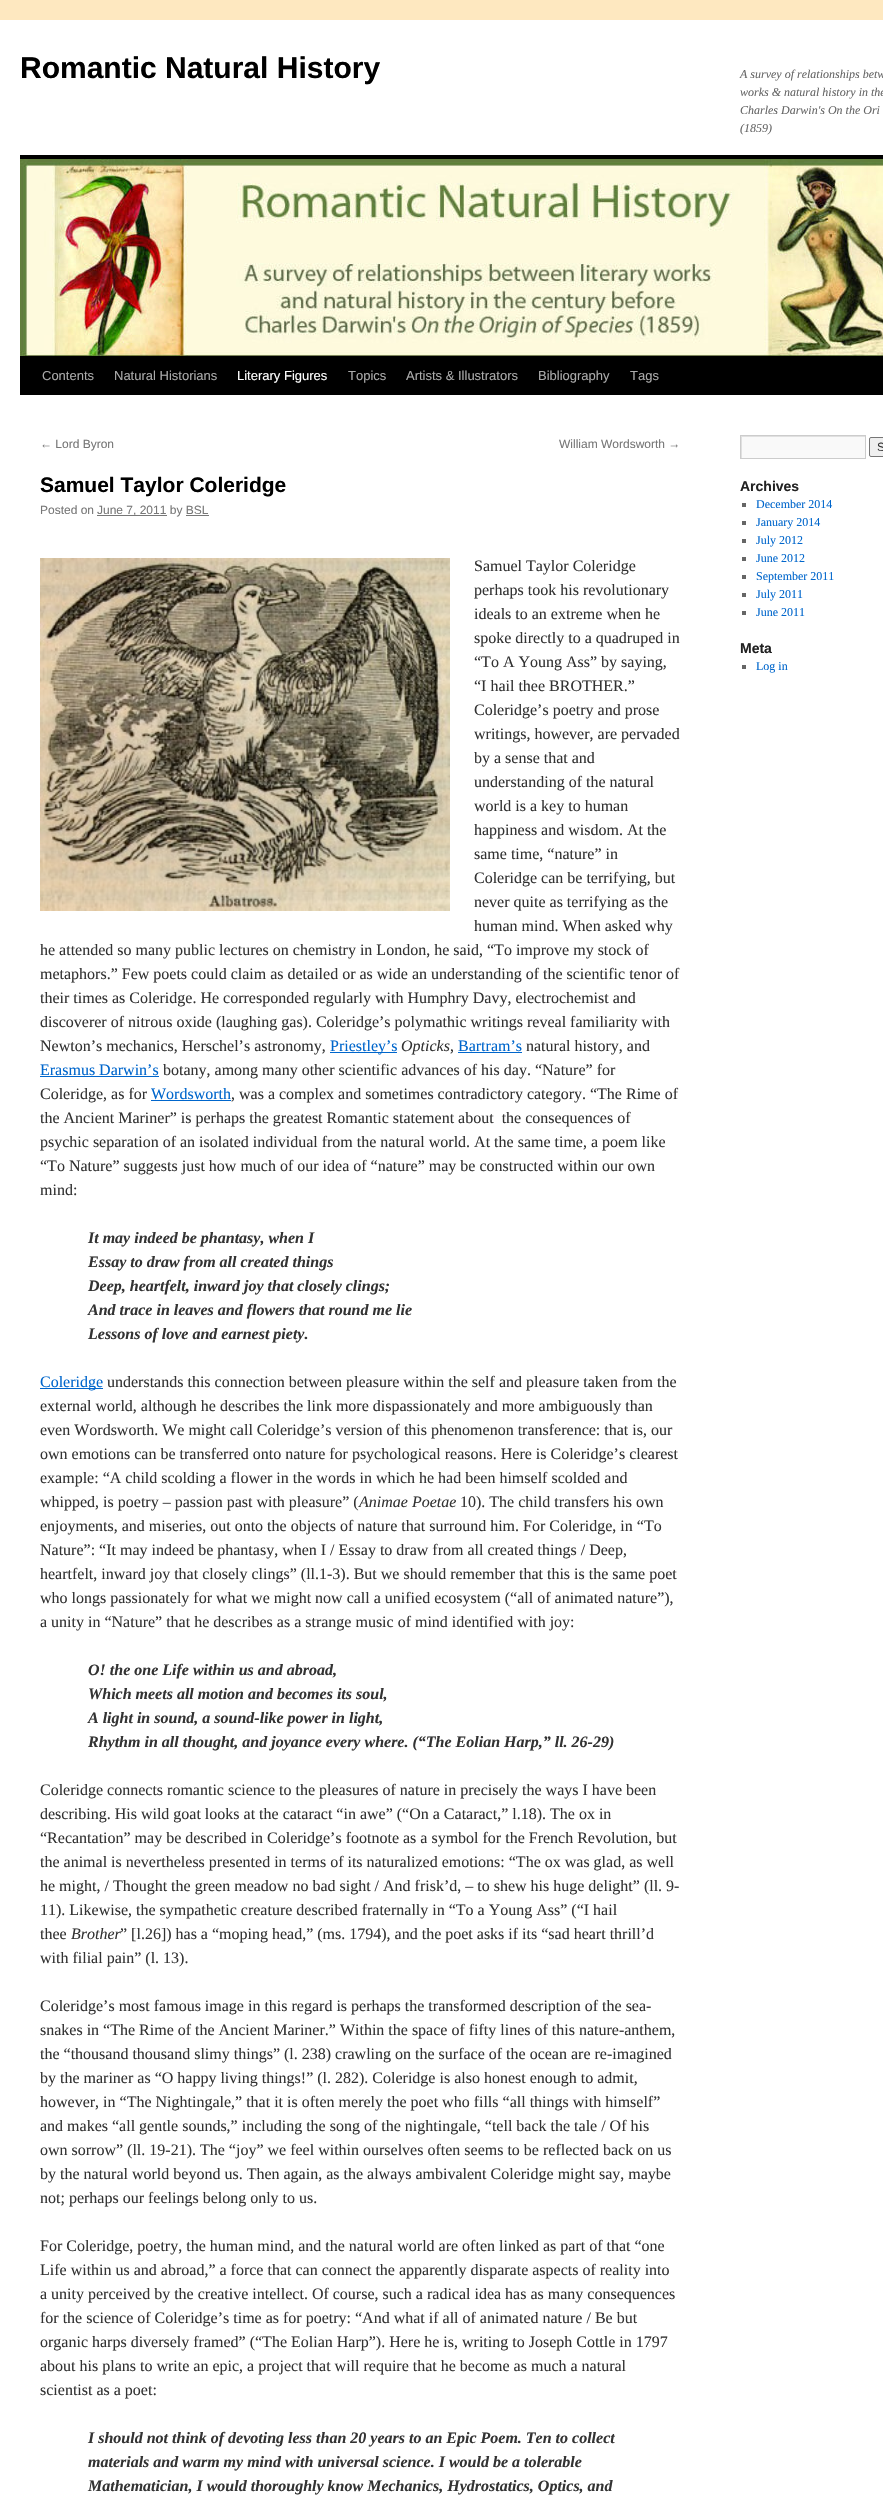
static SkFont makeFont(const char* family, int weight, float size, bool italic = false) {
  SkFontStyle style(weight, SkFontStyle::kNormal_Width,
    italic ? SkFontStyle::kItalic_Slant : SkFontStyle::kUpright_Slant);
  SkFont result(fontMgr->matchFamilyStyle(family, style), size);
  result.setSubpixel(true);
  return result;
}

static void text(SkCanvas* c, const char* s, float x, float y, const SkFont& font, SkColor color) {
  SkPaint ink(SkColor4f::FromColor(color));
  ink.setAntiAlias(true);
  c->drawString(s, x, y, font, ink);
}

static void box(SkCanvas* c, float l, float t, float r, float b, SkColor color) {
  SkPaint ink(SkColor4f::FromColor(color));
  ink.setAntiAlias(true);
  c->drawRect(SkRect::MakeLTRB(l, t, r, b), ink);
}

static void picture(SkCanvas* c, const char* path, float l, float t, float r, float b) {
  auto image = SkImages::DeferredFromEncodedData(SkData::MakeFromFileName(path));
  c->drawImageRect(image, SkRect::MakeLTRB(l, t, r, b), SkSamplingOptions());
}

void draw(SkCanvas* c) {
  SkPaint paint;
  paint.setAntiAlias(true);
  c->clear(0xfffee8c0);
  box(c, 0, 20, 883, 2509, 0xffffffff);
  SkFont face1 = makeFont("Liberation Sans", 700, 30);
  text(c, "Romantic Natural History", 20, 78, face1, 0xff000000);
  SkFont face2 = makeFont("Liberation Serif", 400, 12, true);
  text(c, "A survey of relationships betw", 740, 78, face2, 0xff666666);
  text(c, "works & natural history in the", 740, 96, face2, 0xff666666);
  text(c, "Charles Darwin's On the Ori", 740, 114, face2, 0xff666666);
  text(c, "(1859)", 740, 132, face2, 0xff666666);
  box(c, 20, 155, 883, 159, 0xff000000);
  box(c, 20, 356, 883, 395, 0xff000000);
  picture(c, "img_01.png", 20, 159, 883, 356);
  SkFont face3 = makeFont("Liberation Sans", 400, 13);
  text(c, "Contents", 42, 380, face3, 0xffaaaaaa);
  text(c, "Natural Historians", 114, 380, face3, 0xffaaaaaa);
  text(c, "Literary Figures", 237, 380, face3, 0xffffffff);
  text(c, "Topics", 348, 380, face3, 0xffaaaaaa);
  text(c, "Artists & Illustrators", 406, 380, face3, 0xffaaaaaa);
  text(c, "Bibliography", 538, 380, face3, 0xffaaaaaa);
  text(c, "Tags", 630, 380, face3, 0xffaaaaaa);
  SkFont face4 = makeFont("Liberation Sans", 400, 12);
  text(c, "← Lord Byron", 40, 448, face4, 0xff777777);
  text(c, "William Wordsworth →", 559, 448, face4, 0xff777777);
  SkFont face5 = makeFont("Liberation Sans", 700, 21);
  text(c, "Samuel Taylor Coleridge", 40, 492, face5, 0xff000000);
  text(c, "Posted on", 40, 514, face4, 0xff777777);
  box(c, 97, 515, 167, 516, 0xff777777);
  text(c, "June 7, 2011 by BSL", 97, 514, face4, 0xff777777);
  box(c, 186, 515, 209, 516, 0xff777777);
  picture(c, "img_02.png", 40, 558, 450, 911);
  SkFont face6 = makeFont("Liberation Serif", 400, 16);
  text(c, "Samuel Taylor Coleridge", 474, 571, face6, 0xff333333);
  text(c, "perhaps took his revolutionary", 474, 595, face6, 0xff333333);
  text(c, "ideals to an extreme when he", 474, 619, face6, 0xff333333);
  text(c, "spoke directly to a quadruped in", 474, 643, face6, 0xff333333);
  text(c, "“To A Young Ass” by saying,", 474, 667, face6, 0xff333333);
  text(c, "“I hail thee BROTHER.”", 474, 691, face6, 0xff333333);
  text(c, "Coleridge’s poetry and prose", 474, 715, face6, 0xff333333);
  text(c, "writings, however, are pervaded", 474, 739, face6, 0xff333333);
  text(c, "by a sense that and", 474, 763, face6, 0xff333333);
  text(c, "understanding of the natural", 474, 787, face6, 0xff333333);
  text(c, "world is a key to human", 474, 811, face6, 0xff333333);
  text(c, "happiness and wisdom. At the", 474, 835, face6, 0xff333333);
  text(c, "same time, “nature” in", 474, 859, face6, 0xff333333);
  text(c, "Coleridge can be terrifying, but", 474, 883, face6, 0xff333333);
  text(c, "never quite as terrifying as the", 474, 907, face6, 0xff333333);
  text(c, "human mind. When asked why", 474, 931, face6, 0xff333333);
  text(c, "he attended so many public lectures on chemistry in London, he said, “To improve my stock of", 40, 955, face6, 0xff333333);
  text(c, "metaphors.” Few poets could claim as detailed or as wide an understanding of the scientific tenor of", 40, 979, face6, 0xff333333);
  text(c, "their times as Coleridge. He corresponded regularly with Humphry Davy, electrochemist and", 40, 1003, face6, 0xff333333);
  text(c, "discoverer of nitrous oxide (laughing gas). Coleridge’s polymathic writings reveal familiarity with", 40, 1027, face6, 0xff333333);
  text(c, "Newton’s mechanics, Herschel’s astronomy,", 40, 1051, face6, 0xff333333);
  box(c, 330, 1052, 397, 1053, 0xff0066cc);
  text(c, "Priestley’s", 330, 1051, face6, 0xff0066cc);
  SkFont face7 = makeFont("Liberation Serif", 400, 16, true);
  text(c, "Opticks", 401, 1051, face7, 0xff333333);
  text(c, ",", 450, 1051, face6, 0xff333333);
  text(c, "Bartram’s", 458, 1051, face6, 0xff0066cc);
  box(c, 458, 1052, 522, 1053, 0xff0066cc);
  text(c, "natural history, and", 526, 1051, face6, 0xff333333);
  text(c, "Erasmus Darwin’s", 40, 1075, face6, 0xff0066cc);
  box(c, 40, 1076, 159, 1077, 0xff0066cc);
  text(c, "botany, among many other scientific advances of his day. “Nature” for", 163, 1075, face6, 0xff333333);
  text(c, "Coleridge, as for", 40, 1099, face6, 0xff333333);
  text(c, "Wordsworth", 151, 1099, face6, 0xff0066cc);
  box(c, 151, 1100, 231, 1101, 0xff0066cc);
  text(c, ", was a complex and sometimes contradictory category. “The Rime of", 231, 1099, face6, 0xff333333);
  text(c, "the Ancient Mariner” is perhaps the greatest Romantic statement about  the consequences of", 40, 1123, face6, 0xff333333);
  text(c, "psychic separation of an isolated individual from the natural world. At the same time, a poem like", 40, 1147, face6, 0xff333333);
  text(c, "“To Nature” suggests just how much of our idea of “nature” may be constructed within our own", 40, 1171, face6, 0xff333333);
  text(c, "mind:", 40, 1195, face6, 0xff333333);
  SkFont face8 = makeFont("Liberation Serif", 700, 16, true);
  text(c, "It may indeed be phantasy, when I", 88, 1243, face8, 0xff333333);
  text(c, "Essay to draw from all created things", 88, 1267, face8, 0xff333333);
  text(c, "Deep, heartfelt, inward joy that closely clings;", 88, 1291, face8, 0xff333333);
  text(c, "And trace in leaves and flowers that round me lie", 88, 1315, face8, 0xff333333);
  text(c, "Lessons of love and earnest piety.", 88, 1339, face8, 0xff333333);
  box(c, 40, 1388, 103, 1389, 0xff0066cc);
  text(c, "Coleridge", 40, 1387, face6, 0xff0066cc);
  text(c, "understands this connection between pleasure within the self and pleasure taken from the", 107, 1387, face6, 0xff333333);
  text(c, "external world, although he describes the link more dispassionately and more ambiguously than", 40, 1411, face6, 0xff333333);
  text(c, "even Wordsworth. We might call Coleridge’s version of this phenomenon transference: that is, our", 40, 1435, face6, 0xff333333);
  text(c, "own emotions can be transferred onto nature for psychological reasons. Here is Coleridge’s clearest", 40, 1459, face6, 0xff333333);
  text(c, "example: “A child scolding a flower in the words in which he had been himself scolded and", 40, 1483, face6, 0xff333333);
  text(c, "whipped, is poetry – passion past with pleasure” (", 40, 1507, face6, 0xff333333);
  text(c, "Animae Poetae", 359, 1507, face7, 0xff333333);
  text(c, "10). The child transfers his own", 460, 1507, face6, 0xff333333);
  text(c, "enjoyments, and miseries, out onto the objects of nature that surround him. For Coleridge, in “To", 40, 1531, face6, 0xff333333);
  text(c, "Nature”: “It may indeed be phantasy, when I / Essay to draw from all created things / Deep,", 40, 1555, face6, 0xff333333);
  text(c, "heartfelt, inward joy that closely clings” (ll.1-3). But we should remember that this is the same poet", 40, 1579, face6, 0xff333333);
  text(c, "who longs passionately for what we might now call a unified ecosystem (“all of animated nature”),", 40, 1603, face6, 0xff333333);
  text(c, "a unity in “Nature” that he describes as a strange music of mind identified with joy:", 40, 1627, face6, 0xff333333);
  text(c, "O! the one Life within us and abroad,", 88, 1675, face8, 0xff333333);
  text(c, "Which meets all motion and becomes its soul,", 88, 1699, face8, 0xff333333);
  text(c, "A light in sound, a sound-like power in light,", 88, 1723, face8, 0xff333333);
  text(c, "Rhythm in all thought, and joyance every where. (“The Eolian Harp,” ll. 26-29)", 88, 1747, face8, 0xff333333);
  text(c, "Coleridge connects romantic science to the pleasures of nature in precisely the ways I have been", 40, 1795, face6, 0xff333333);
  text(c, "describing. His wild goat looks at the cataract “in awe” (“On a Cataract,” l.18). The ox in", 40, 1819, face6, 0xff333333);
  text(c, "“Recantation” may be described in Coleridge’s footnote as a symbol for the French Revolution, but", 40, 1843, face6, 0xff333333);
  text(c, "the animal is nevertheless presented in terms of its naturalized emotions: “The ox was glad, as well", 40, 1867, face6, 0xff333333);
  text(c, "he might, / Thought the green meadow no bad sight / And frisk’d, – to shew his huge delight” (ll. 9-", 40, 1891, face6, 0xff333333);
  text(c, "11). Likewise, the sympathetic creature described fraternally in “To a Young Ass” (“I hail", 40, 1915, face6, 0xff333333);
  text(c, "thee", 40, 1939, face6, 0xff333333);
  text(c, "Brother", 71, 1939, face7, 0xff333333);
  text(c, "” [l.26]) has a “moping head,” (ms. 1794), and the poet asks if its “sad heart thrill’d", 120, 1939, face6, 0xff333333);
  text(c, "with filial pain” (l. 13).", 40, 1963, face6, 0xff333333);
  text(c, "Coleridge’s most famous image in this regard is perhaps the transformed description of the sea-", 40, 2011, face6, 0xff333333);
  text(c, "snakes in “The Rime of the Ancient Mariner.” Within the space of fifty lines of this nature-anthem,", 40, 2035, face6, 0xff333333);
  text(c, "the “thousand thousand slimy things” (l. 238) crawling on the surface of the ocean are re-imagined", 40, 2059, face6, 0xff333333);
  text(c, "by the mariner as “O happy living things!” (l. 282). Coleridge is also honest enough to admit,", 40, 2083, face6, 0xff333333);
  text(c, "however, in “The Nightingale,” that it is often merely the poet who fills “all things with himself”", 40, 2107, face6, 0xff333333);
  text(c, "and makes “all gentle sounds,” including the song of the nightingale, “tell back the tale / Of his", 40, 2131, face6, 0xff333333);
  text(c, "own sorrow” (ll. 19-21). The “joy” we feel within ourselves often seems to be reflected back on us", 40, 2155, face6, 0xff333333);
  text(c, "by the natural world beyond us. Then again, as the always ambivalent Coleridge might say, maybe", 40, 2179, face6, 0xff333333);
  text(c, "not; perhaps our feelings belong only to us.", 40, 2203, face6, 0xff333333);
  text(c, "For Coleridge, poetry, the human mind, and the natural world are often linked as part of that “one", 40, 2251, face6, 0xff333333);
  text(c, "Life within us and abroad,” a force that can connect the apparently disparate aspects of reality into", 40, 2275, face6, 0xff333333);
  text(c, "a unity perceived by the creative intellect. Of course, such a radical idea has as many consequences", 40, 2299, face6, 0xff333333);
  text(c, "for the science of Coleridge’s time as for poetry: “And what if all of animated nature / Be but", 40, 2323, face6, 0xff333333);
  text(c, "organic harps diversely framed” (“The Eolian Harp”). Here he is, writing to Joseph Cottle in 1797", 40, 2347, face6, 0xff333333);
  text(c, "about his plans to write an epic, a project that will require that he become as much a natural", 40, 2371, face6, 0xff333333);
  text(c, "scientist as a poet:", 40, 2395, face6, 0xff333333);
  text(c, "I should not think of devoting less than 20 years to an Epic Poem. Ten to collect", 88, 2443, face8, 0xff333333);
  text(c, "materials and warm my mind with universal science. I would be a tolerable", 88, 2467, face8, 0xff333333);
  text(c, "Mathematician, I would thoroughly know Mechanics, Hydrostatics, Optics, and", 88, 2491, face8, 0xff333333);
  box(c, 742, 437, 865, 458, 0xfff9f9f9);
  c->save();
  c->clipRect(SkRect::MakeLTRB(741, 436, 865, 458));
  paint.setColor(0xffe0e0e0);
  c->drawPath(SkPathBuilder(SkPathFillType::kEvenOdd).moveTo(642, 337).lineTo(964, 337).lineTo(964, 557).lineTo(642, 557).close().moveTo(742, 437).lineTo(866, 437).lineTo(866, 459).lineTo(742, 459).close().detach(), paint);
  c->restore();
  paint.setStyle(SkPaint::kStroke_Style);
  paint.setStrokeWidth(1);
  paint.setColor(0xffcccccc);
  c->drawRect(SkRect::MakeLTRB(740.5f, 435.5f, 865.5f, 458.5f), paint);
  paint.setStyle(SkPaint::kFill_Style);
  paint.setColor(0xffefefef);
  c->drawRoundRect(SkRect::MakeLTRB(869.5f, 437.5f, 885.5f, 456.5f), 1.5f, 1.5f, paint);
  paint.setStyle(SkPaint::kStroke_Style);
  paint.setColor(0xff767676);
  c->drawRoundRect(SkRect::MakeLTRB(869.5f, 437.5f, 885.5f, 456.5f), 1.5f, 1.5f, paint);
  text(c, "S", 877, 451, face4, 0xff333333);
  SkFont face9 = makeFont("Liberation Sans", 700, 14);
  text(c, "Archives", 740, 491, face9, 0xff222222);
  box(c, 742, 503, 746, 507, 0xff666666);
  SkFont face10 = makeFont("Liberation Serif", 400, 12);
  text(c, "December 2014", 756, 508, face10, 0xff0066cc);
  box(c, 742, 521, 746, 525, 0xff666666);
  text(c, "January 2014", 756, 526, face10, 0xff0066cc);
  box(c, 742, 539, 746, 543, 0xff666666);
  text(c, "July 2012", 756, 544, face10, 0xff0066cc);
  box(c, 742, 557, 746, 561, 0xff666666);
  text(c, "June 2012", 756, 562, face10, 0xff0066cc);
  box(c, 742, 575, 746, 579, 0xff666666);
  text(c, "September 2011", 756, 580, face10, 0xff0066cc);
  box(c, 742, 593, 746, 597, 0xff666666);
  text(c, "July 2011", 756, 598, face10, 0xff0066cc);
  box(c, 742, 611, 746, 615, 0xff666666);
  text(c, "June 2011", 756, 616, face10, 0xff0066cc);
  text(c, "Meta", 740, 653, face9, 0xff222222);
  box(c, 742, 665, 746, 669, 0xff666666);
  text(c, "Log in", 756, 670, face10, 0xff0066cc);
}
